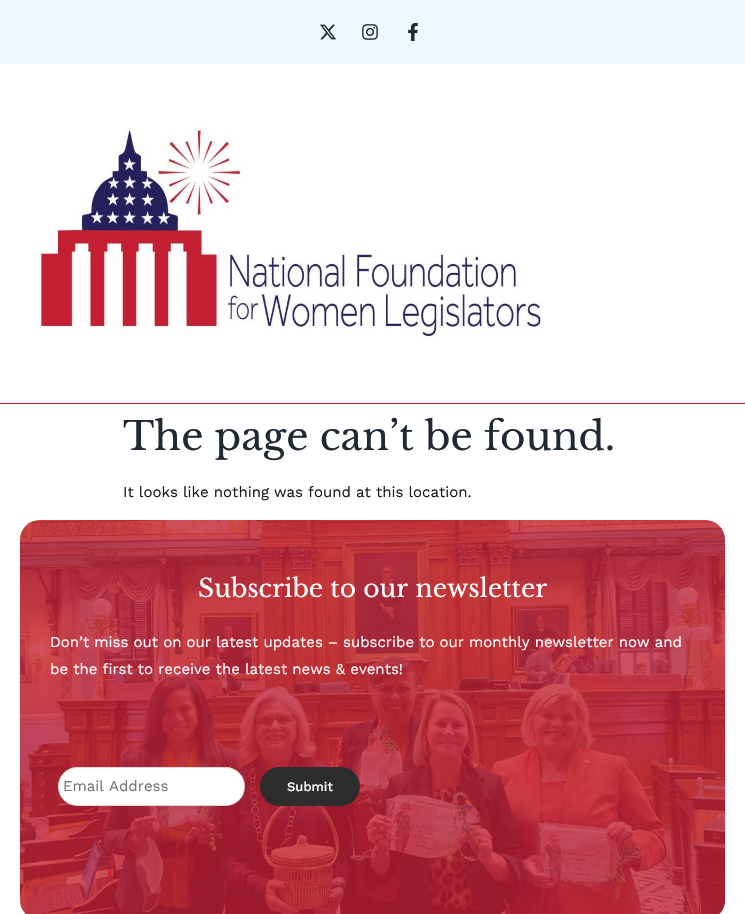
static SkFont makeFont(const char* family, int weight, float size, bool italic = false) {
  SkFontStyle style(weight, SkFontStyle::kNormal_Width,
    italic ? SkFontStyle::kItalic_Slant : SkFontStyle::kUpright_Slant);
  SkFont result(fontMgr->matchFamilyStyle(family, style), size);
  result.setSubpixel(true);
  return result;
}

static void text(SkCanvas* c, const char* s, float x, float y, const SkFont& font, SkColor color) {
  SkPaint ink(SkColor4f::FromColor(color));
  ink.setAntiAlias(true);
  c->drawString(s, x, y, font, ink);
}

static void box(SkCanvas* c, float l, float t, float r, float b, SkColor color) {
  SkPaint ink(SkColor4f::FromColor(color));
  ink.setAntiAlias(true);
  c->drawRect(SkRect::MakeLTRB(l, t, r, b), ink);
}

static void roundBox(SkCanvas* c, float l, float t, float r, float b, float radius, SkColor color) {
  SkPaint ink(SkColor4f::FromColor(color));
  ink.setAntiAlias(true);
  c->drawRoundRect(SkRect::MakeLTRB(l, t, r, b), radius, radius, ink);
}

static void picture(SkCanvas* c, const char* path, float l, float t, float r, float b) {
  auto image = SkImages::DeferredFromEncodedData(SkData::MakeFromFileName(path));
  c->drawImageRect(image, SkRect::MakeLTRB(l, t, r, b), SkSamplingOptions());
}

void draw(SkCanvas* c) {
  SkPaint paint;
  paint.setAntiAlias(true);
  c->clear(0xffffffff);
  box(c, 0, 0, 745, 64, 0xffeef8fe);
  picture(c, "img_01.png", 320, 24, 336, 40);
  picture(c, "img_02.png", 362, 24, 378, 40);
  picture(c, "img_03.png", 408, 23, 418, 41);
  box(c, 0, 403, 745, 404, 0xffc22034);
  picture(c, "img_04.png", 37, 123, 546, 340);
  SkFont face1 = makeFont("Libre Baskerville", 400, 39);
  text(c, "The page can’t be found.", 123, 450, face1, 0xff202833);
  SkFont face2 = makeFont("Work Sans", 400, 15);
  text(c, "It looks like nothing was found at this location.", 123, 497, face2, 0xff1b1b1b);
  picture(c, "img_05.png", 20, 520, 725, 914);
  roundBox(c, 20, 520, 725, 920, 20, 0xc9c22034);
  SkFont face3 = makeFont("Libre Baskerville", 400, 25);
  text(c, "Subscribe to our newsletter", 198, 597, face3, 0xffffffff);
  text(c, "Don’t miss out on our latest updates – subscribe to our monthly newsletter now and", 50, 647, face2, 0xffffffff);
  text(c, "be the first to receive the latest news & events!", 50, 674, face2, 0xffffffff);
  roundBox(c, 58, 767, 245, 806, 19.5f, 0xffffffff);
  paint.setStyle(SkPaint::kStroke_Style);
  paint.setStrokeWidth(1);
  paint.setColor(0x30202833);
  c->drawRoundRect(SkRect::MakeLTRB(58.5f, 767.5f, 244.5f, 805.5f), 19, 19, paint);
  text(c, "Email Address", 63, 791, face2, 0xff757575);
  roundBox(c, 260, 767, 360, 806, 19.5f, 0xff2d2d2d);
  SkFont face4 = makeFont("Work Sans", 500, 13);
  text(c, "Submit", 287, 791, face4, 0xffffffff);
}
